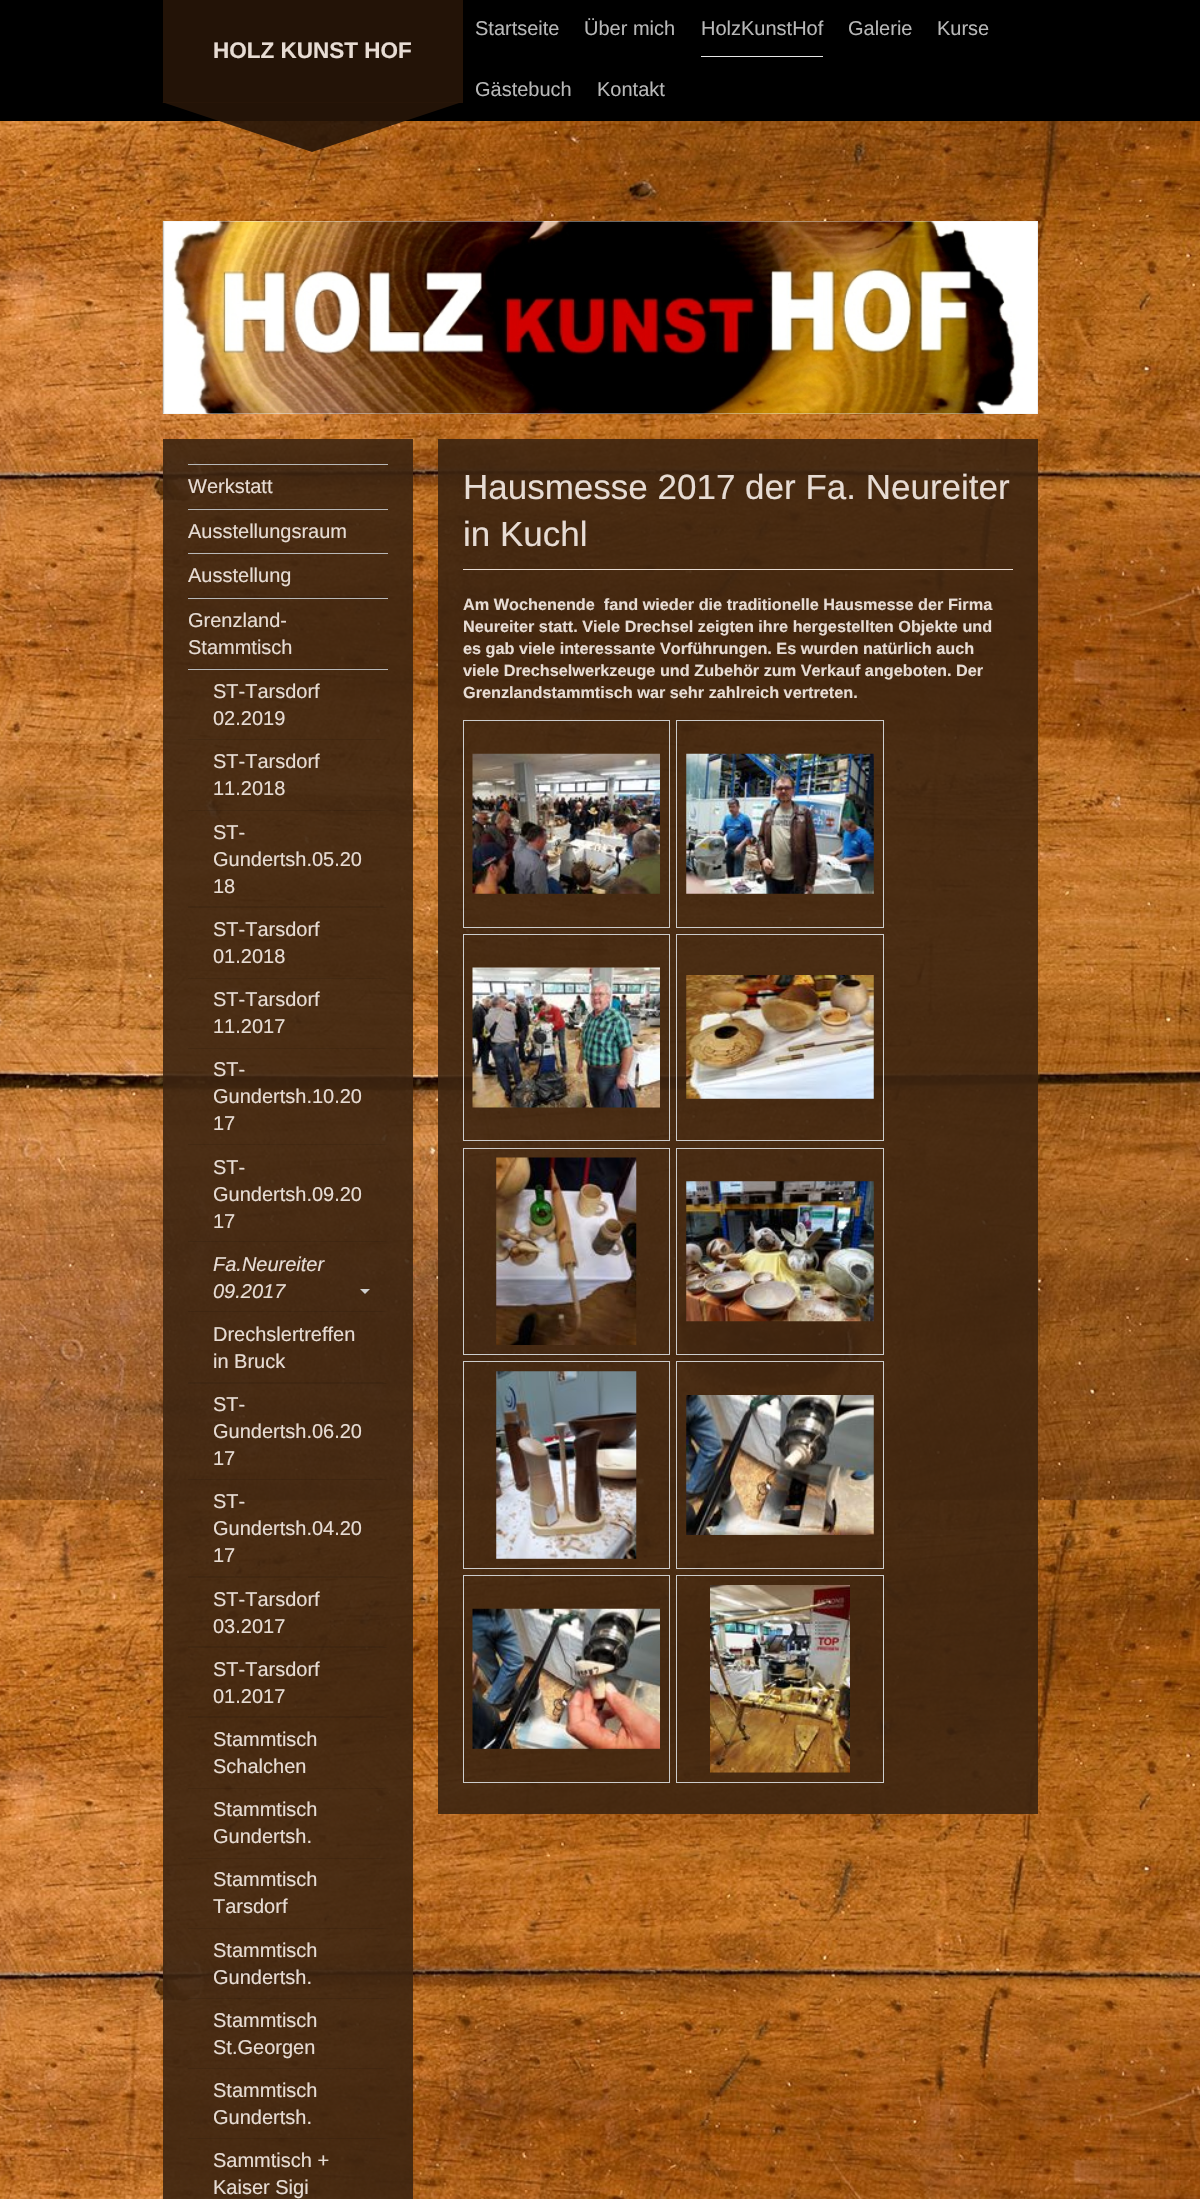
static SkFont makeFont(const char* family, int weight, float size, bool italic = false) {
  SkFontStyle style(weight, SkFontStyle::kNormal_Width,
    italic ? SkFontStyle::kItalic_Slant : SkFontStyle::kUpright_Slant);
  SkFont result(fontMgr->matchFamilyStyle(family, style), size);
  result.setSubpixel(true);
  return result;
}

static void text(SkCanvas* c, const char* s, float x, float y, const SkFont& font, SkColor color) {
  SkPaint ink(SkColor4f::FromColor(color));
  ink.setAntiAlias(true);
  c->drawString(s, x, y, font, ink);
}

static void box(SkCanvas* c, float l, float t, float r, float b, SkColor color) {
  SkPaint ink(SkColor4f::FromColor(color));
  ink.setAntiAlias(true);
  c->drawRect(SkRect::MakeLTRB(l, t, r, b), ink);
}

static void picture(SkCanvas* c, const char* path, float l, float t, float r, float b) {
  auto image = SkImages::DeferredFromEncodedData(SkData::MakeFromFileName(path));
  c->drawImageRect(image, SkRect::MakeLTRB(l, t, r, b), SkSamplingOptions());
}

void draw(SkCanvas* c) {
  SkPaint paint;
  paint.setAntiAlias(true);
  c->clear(0xffffffff);
  picture(c, "img_01.png", 0, 121, 1200, 2199);
  box(c, 0, 0, 1200, 121, 0xff000000);
  box(c, 163, 0, 463, 103, 0xff231307);
  SkFont face1 = makeFont("Liberation Sans", 700, 22.5f);
  text(c, "HOLZ KUNST HOF", 213, 58, face1, 0xffe7dcd4);
  paint.setColor(0xe6271508);
  c->drawPath(SkPathBuilder().moveTo(162, 102).lineTo(462, 102).lineTo(312, 152).close().detach(), paint);
  SkFont face2 = makeFont("Liberation Sans", 400, 20);
  text(c, "Startseite", 475, 35, face2, 0xffb8b8b8);
  text(c, "Über mich", 584, 35, face2, 0xffb8b8b8);
  box(c, 701, 56, 823, 57, 0xffe6e6e6);
  text(c, "HolzKunstHof", 701, 35, face2, 0xffb8b8b8);
  text(c, "Galerie", 848, 35, face2, 0xffb8b8b8);
  text(c, "Kurse", 937, 35, face2, 0xffb8b8b8);
  text(c, "Gästebuch", 475, 96, face2, 0xffb8b8b8);
  text(c, "Kontakt", 597, 96, face2, 0xffb8b8b8);
  box(c, 163, 221, 1038, 414, 0xffeeeeee);
  picture(c, "img_02.png", 162, 221, 1038, 414);
  box(c, 163, 439, 413, 2199, 0xe63c230f);
  box(c, 188, 464, 388, 465, 0xffb8b8b8);
  box(c, 188, 509, 388, 510, 0xffb8b8b8);
  paint.setColor(0x1a000000);
  c->drawPath(SkPathBuilder().moveTo(388, 509).lineTo(188, 509).lineTo(188, 508).lineTo(382, 508).close().detach(), paint);
  text(c, "Werkstatt", 188, 493, face2, 0xffe7dcd4);
  box(c, 188, 553, 388, 554, 0xffb8b8b8);
  c->drawPath(SkPathBuilder().moveTo(388, 552).lineTo(188, 552).lineTo(188, 551).lineTo(382, 551).close().detach(), paint);
  text(c, "Ausstellungsraum", 188, 538, face2, 0xffe7dcd4);
  box(c, 188, 598, 388, 599, 0xffb8b8b8);
  c->drawPath(SkPathBuilder().moveTo(388, 598).lineTo(188, 598).lineTo(188, 596).lineTo(382, 596).close().detach(), paint);
  text(c, "Ausstellung", 188, 582, face2, 0xffe7dcd4);
  box(c, 188, 669, 388, 670, 0xffb8b8b8);
  c->drawPath(SkPathBuilder().moveTo(388, 669).lineTo(188, 669).lineTo(188, 668).lineTo(382, 668).close().detach(), paint);
  text(c, "Grenzland-", 188, 627, face2, 0xffe7dcd4);
  text(c, "Stammtisch", 188, 654, face2, 0xffe7dcd4);
  c->drawPath(SkPathBuilder().moveTo(388, 740).lineTo(188, 740).lineTo(188, 739).lineTo(382, 739).close().detach(), paint);
  text(c, "ST-Tarsdorf", 213, 698, face2, 0xffe7dcd4);
  text(c, "02.2019", 213, 725, face2, 0xffe7dcd4);
  c->drawPath(SkPathBuilder().moveTo(388, 811).lineTo(188, 811).lineTo(188, 810).lineTo(382, 810).close().detach(), paint);
  text(c, "ST-Tarsdorf", 213, 768, face2, 0xffe7dcd4);
  text(c, "11.2018", 213, 795, face2, 0xffe7dcd4);
  c->drawPath(SkPathBuilder().moveTo(388, 908).lineTo(188, 908).lineTo(188, 906).lineTo(382, 906).close().detach(), paint);
  text(c, "ST-", 213, 839, face2, 0xffe7dcd4);
  text(c, "Gundertsh.05.20", 213, 866, face2, 0xffe7dcd4);
  text(c, "18", 213, 893, face2, 0xffe7dcd4);
  c->drawPath(SkPathBuilder().moveTo(388, 979).lineTo(188, 979).lineTo(188, 978).lineTo(382, 978).close().detach(), paint);
  text(c, "ST-Tarsdorf", 213, 936, face2, 0xffe7dcd4);
  text(c, "01.2018", 213, 963, face2, 0xffe7dcd4);
  c->drawPath(SkPathBuilder().moveTo(388, 1049).lineTo(188, 1049).lineTo(188, 1048).lineTo(382, 1048).close().detach(), paint);
  text(c, "ST-Tarsdorf", 213, 1006, face2, 0xffe7dcd4);
  text(c, "11.2017", 213, 1033, face2, 0xffe7dcd4);
  c->drawPath(SkPathBuilder().moveTo(388, 1145).lineTo(188, 1145).lineTo(188, 1144).lineTo(382, 1144).close().detach(), paint);
  text(c, "ST-", 213, 1076, face2, 0xffe7dcd4);
  text(c, "Gundertsh.10.20", 213, 1103, face2, 0xffe7dcd4);
  text(c, "17", 213, 1130, face2, 0xffe7dcd4);
  c->drawPath(SkPathBuilder().moveTo(388, 1242).lineTo(188, 1242).lineTo(188, 1241).lineTo(382, 1241).close().detach(), paint);
  text(c, "ST-", 213, 1174, face2, 0xffe7dcd4);
  text(c, "Gundertsh.09.20", 213, 1201, face2, 0xffe7dcd4);
  text(c, "17", 213, 1228, face2, 0xffe7dcd4);
  c->drawPath(SkPathBuilder().moveTo(388, 1312).lineTo(188, 1312).lineTo(188, 1311).lineTo(382, 1311).close().detach(), paint);
  SkFont face3 = makeFont("Liberation Sans", 400, 20, true);
  text(c, "Fa.Neureiter", 213, 1271, face3, 0xffe7dcd4);
  text(c, "09.2017", 213, 1298, face3, 0xffe7dcd4);
  paint.setColor(0xffcfcfcf);
  c->drawPath(SkPathBuilder().moveTo(360, 1289).lineTo(370, 1289).lineTo(365, 1294).close().detach(), paint);
  paint.setColor(0x1a000000);
  c->drawPath(SkPathBuilder().moveTo(388, 1384).lineTo(188, 1384).lineTo(188, 1382).lineTo(382, 1382).close().detach(), paint);
  text(c, "Drechslertreffen", 213, 1341, face2, 0xffe7dcd4);
  text(c, "in Bruck", 213, 1368, face2, 0xffe7dcd4);
  c->drawPath(SkPathBuilder().moveTo(388, 1480).lineTo(188, 1480).lineTo(188, 1479).lineTo(382, 1479).close().detach(), paint);
  text(c, "ST-", 213, 1411, face2, 0xffe7dcd4);
  text(c, "Gundertsh.06.20", 213, 1438, face2, 0xffe7dcd4);
  text(c, "17", 213, 1465, face2, 0xffe7dcd4);
  c->drawPath(SkPathBuilder().moveTo(388, 1578).lineTo(188, 1578).lineTo(188, 1576).lineTo(382, 1576).close().detach(), paint);
  text(c, "ST-", 213, 1508, face2, 0xffe7dcd4);
  text(c, "Gundertsh.04.20", 213, 1535, face2, 0xffe7dcd4);
  text(c, "17", 213, 1562, face2, 0xffe7dcd4);
  c->drawPath(SkPathBuilder().moveTo(388, 1648).lineTo(188, 1648).lineTo(188, 1646).lineTo(382, 1646).close().detach(), paint);
  text(c, "ST-Tarsdorf", 213, 1606, face2, 0xffe7dcd4);
  text(c, "03.2017", 213, 1633, face2, 0xffe7dcd4);
  c->drawPath(SkPathBuilder().moveTo(388, 1718).lineTo(188, 1718).lineTo(188, 1716).lineTo(382, 1716).close().detach(), paint);
  text(c, "ST-Tarsdorf", 213, 1676, face2, 0xffe7dcd4);
  text(c, "01.2017", 213, 1703, face2, 0xffe7dcd4);
  c->drawPath(SkPathBuilder().moveTo(388, 1789).lineTo(188, 1789).lineTo(188, 1788).lineTo(382, 1788).close().detach(), paint);
  text(c, "Stammtisch", 213, 1746, face2, 0xffe7dcd4);
  text(c, "Schalchen", 213, 1773, face2, 0xffe7dcd4);
  c->drawPath(SkPathBuilder().moveTo(388, 1859).lineTo(188, 1859).lineTo(188, 1858).lineTo(382, 1858).close().detach(), paint);
  text(c, "Stammtisch", 213, 1816, face2, 0xffe7dcd4);
  text(c, "Gundertsh.", 213, 1843, face2, 0xffe7dcd4);
  c->drawPath(SkPathBuilder().moveTo(388, 1929).lineTo(188, 1929).lineTo(188, 1928).lineTo(382, 1928).close().detach(), paint);
  text(c, "Stammtisch", 213, 1886, face2, 0xffe7dcd4);
  text(c, "Tarsdorf", 213, 1913, face2, 0xffe7dcd4);
  c->drawPath(SkPathBuilder().moveTo(388, 1999).lineTo(188, 1999).lineTo(188, 1998).lineTo(382, 1998).close().detach(), paint);
  text(c, "Stammtisch", 213, 1957, face2, 0xffe7dcd4);
  text(c, "Gundertsh.", 213, 1984, face2, 0xffe7dcd4);
  c->drawPath(SkPathBuilder().moveTo(388, 2069).lineTo(188, 2069).lineTo(188, 2068).lineTo(382, 2068).close().detach(), paint);
  text(c, "Stammtisch", 213, 2027, face2, 0xffe7dcd4);
  text(c, "St.Georgen", 213, 2054, face2, 0xffe7dcd4);
  c->drawPath(SkPathBuilder().moveTo(388, 2139).lineTo(188, 2139).lineTo(188, 2138).lineTo(382, 2138).close().detach(), paint);
  text(c, "Stammtisch", 213, 2097, face2, 0xffe7dcd4);
  text(c, "Gundertsh.", 213, 2124, face2, 0xffe7dcd4);
  text(c, "Sammtisch +", 213, 2167, face2, 0xffe7dcd4);
  text(c, "Kaiser Sigi", 213, 2194, face2, 0xffe7dcd4);
  box(c, 438, 439, 1038, 1814, 0xe63c230f);
  box(c, 463, 569, 1013, 570, 0xffe7dcd4);
  SkFont face4 = makeFont("Liberation Sans", 400, 35);
  text(c, "Hausmesse 2017 der Fa. Neureiter", 463, 499, face4, 0xffe7dcd4);
  text(c, "in Kuchl", 463, 546, face4, 0xffe7dcd4);
  SkFont face5 = makeFont("Liberation Sans", 700, 16.25f);
  text(c, "Am Wochenende  fand wieder die traditionelle Hausmesse der Firma", 463, 610, face5, 0xffe7dcd4);
  text(c, "Neureiter statt. Viele Drechsel zeigten ihre hergestellten Objekte und", 463, 632, face5, 0xffe7dcd4);
  text(c, "es gab viele interessante Vorführungen. Es wurden natürlich auch", 463, 654, face5, 0xffe7dcd4);
  text(c, "viele Drechselwerkzeuge und Zubehör zum Verkauf angeboten. Der", 463, 676, face5, 0xffe7dcd4);
  text(c, "Grenzlandstammtisch war sehr zahlreich vertreten.", 463, 698, face5, 0xffe7dcd4);
  paint.setStyle(SkPaint::kStroke_Style);
  paint.setStrokeWidth(1);
  paint.setColor(0xffcccccc);
  c->drawRect(SkRect::MakeLTRB(463.5f, 720.5f, 669.5f, 927.5f), paint);
  picture(c, "img_03.png", 472, 753, 660, 894);
  c->drawRect(SkRect::MakeLTRB(676.5f, 720.5f, 883.5f, 927.5f), paint);
  picture(c, "img_04.png", 686, 753, 874, 894);
  c->drawRect(SkRect::MakeLTRB(463.5f, 934.5f, 669.5f, 1140.5f), paint);
  picture(c, "img_05.png", 472, 967, 660, 1108);
  c->drawRect(SkRect::MakeLTRB(676.5f, 934.5f, 883.5f, 1140.5f), paint);
  picture(c, "img_06.png", 686, 975, 874, 1099);
  c->drawRect(SkRect::MakeLTRB(463.5f, 1148.5f, 669.5f, 1354.5f), paint);
  picture(c, "img_07.png", 496, 1157, 637, 1345);
  c->drawRect(SkRect::MakeLTRB(676.5f, 1148.5f, 883.5f, 1354.5f), paint);
  picture(c, "img_08.png", 686, 1181, 874, 1322);
  c->drawRect(SkRect::MakeLTRB(463.5f, 1361.5f, 669.5f, 1568.5f), paint);
  picture(c, "img_09.png", 496, 1371, 637, 1559);
  c->drawRect(SkRect::MakeLTRB(676.5f, 1361.5f, 883.5f, 1568.5f), paint);
  picture(c, "img_10.png", 686, 1395, 874, 1535);
  c->drawRect(SkRect::MakeLTRB(463.5f, 1575.5f, 669.5f, 1782.5f), paint);
  picture(c, "img_11.png", 472, 1608, 660, 1749);
  c->drawRect(SkRect::MakeLTRB(676.5f, 1575.5f, 883.5f, 1782.5f), paint);
  picture(c, "img_12.png", 710, 1585, 850, 1773);
}
